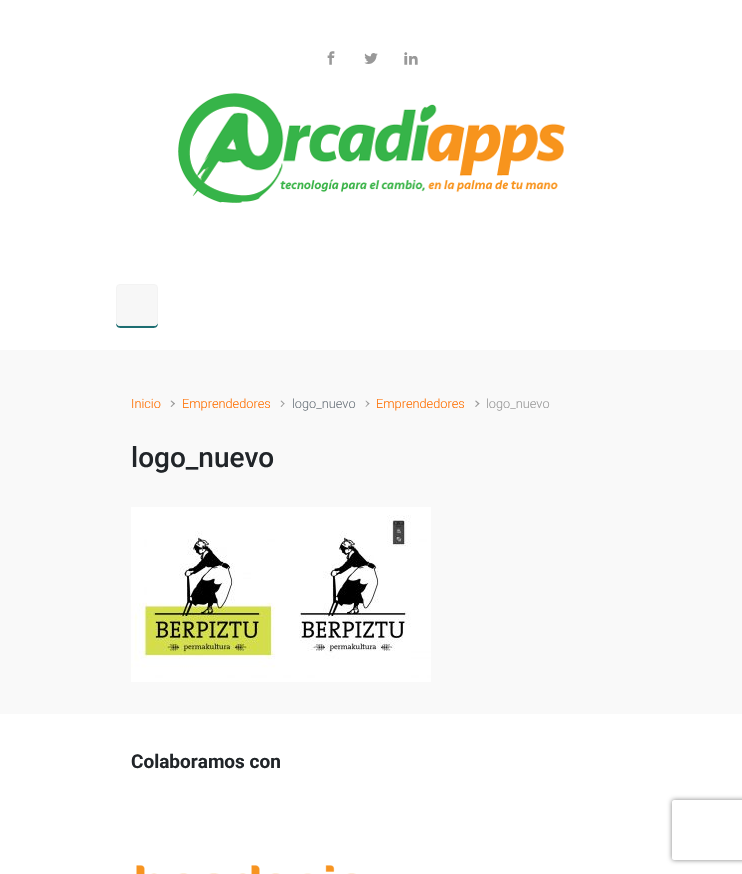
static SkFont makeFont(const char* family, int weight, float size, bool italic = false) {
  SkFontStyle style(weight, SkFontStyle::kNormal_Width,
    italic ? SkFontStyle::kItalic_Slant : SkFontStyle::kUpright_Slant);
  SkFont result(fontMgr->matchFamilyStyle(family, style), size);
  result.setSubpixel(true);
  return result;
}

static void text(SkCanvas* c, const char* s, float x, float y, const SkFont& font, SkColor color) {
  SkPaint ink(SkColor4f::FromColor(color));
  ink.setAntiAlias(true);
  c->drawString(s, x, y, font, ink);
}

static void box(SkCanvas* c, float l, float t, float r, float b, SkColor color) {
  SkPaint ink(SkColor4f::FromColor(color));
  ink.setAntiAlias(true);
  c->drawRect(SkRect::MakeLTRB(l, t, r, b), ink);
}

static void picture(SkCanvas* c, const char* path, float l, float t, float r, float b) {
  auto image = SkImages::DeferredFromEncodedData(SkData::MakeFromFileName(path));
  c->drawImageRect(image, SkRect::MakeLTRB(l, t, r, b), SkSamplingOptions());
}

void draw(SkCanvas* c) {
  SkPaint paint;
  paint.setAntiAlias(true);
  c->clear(0xfff9f9f9);
  box(c, 0, 0, 742, 350, 0xffffffff);
  picture(c, "img_01.png", 327, 51, 335, 65);
  picture(c, "img_02.png", 364, 53, 378, 64);
  picture(c, "img_03.png", 404, 52, 418, 65);
  picture(c, "img_04.png", 178, 93, 566, 203);
  paint.setColor(0xff1d6e72);
  c->drawPath(SkPathBuilder().moveTo(116, 322).cubicTo(116, 329, 119, 328, 126, 328).lineTo(148, 328).cubicTo(155, 328, 158, 329, 158, 322).cubicTo(158, 324, 156, 326, 154, 326).lineTo(120, 326).cubicTo(118, 326, 116, 324, 116, 322).close().detach(), paint);
  paint.setColor(0xfff7f7f7);
  c->drawRoundRect(SkRect::MakeLTRB(116.5f, 284.5f, 157.5f, 325.5f), 3.5f, 3.5f, paint);
  paint.setStyle(SkPaint::kStroke_Style);
  paint.setStrokeWidth(1);
  paint.setColor(0xfff3f3f3);
  c->drawRoundRect(SkRect::MakeLTRB(116.5f, 284.5f, 157.5f, 325.5f), 3.5f, 3.5f, paint);
  SkFont face1 = makeFont("Roboto", 300, 12.75f);
  text(c, "Inicio", 131, 408, face1, 0xffff6f00);
  paint.setStyle(SkPaint::kFill_Style);
  paint.setColor(0xff999999);
  c->drawPath(SkPathBuilder().moveTo(170.5f, 401).lineTo(171.5f, 400.5f).lineTo(175, 403.5f).lineTo(174, 404.5f).close().detach(), paint);
  c->drawPath(SkPathBuilder().moveTo(170.5f, 406.5f).lineTo(174, 403).lineTo(175, 403.5f).lineTo(171.5f, 407).close().detach(), paint);
  text(c, "Emprendedores", 182, 408, face1, 0xffff6f00);
  c->drawPath(SkPathBuilder().moveTo(280.5f, 401).lineTo(281.5f, 400.5f).lineTo(284.5f, 403.5f).lineTo(284, 404.5f).close().detach(), paint);
  c->drawPath(SkPathBuilder().moveTo(280.5f, 406.5f).lineTo(284, 403).lineTo(284.5f, 403.5f).lineTo(281.5f, 407).close().detach(), paint);
  text(c, "logo_nuevo", 292, 408, face1, 0xff6c757d);
  c->drawPath(SkPathBuilder().moveTo(365.5f, 401).lineTo(366, 400.5f).lineTo(369.5f, 403.5f).lineTo(368.5f, 404.5f).close().detach(), paint);
  c->drawPath(SkPathBuilder().moveTo(365.5f, 406.5f).lineTo(368.5f, 403).lineTo(369.5f, 403.5f).lineTo(366, 407).close().detach(), paint);
  text(c, "Emprendedores", 376, 408, face1, 0xffff6f00);
  c->drawPath(SkPathBuilder().moveTo(475, 401).lineTo(476, 400.5f).lineTo(479.5f, 403.5f).lineTo(478.5f, 404.5f).close().detach(), paint);
  c->drawPath(SkPathBuilder().moveTo(475, 406.5f).lineTo(478.5f, 403).lineTo(479.5f, 403.5f).lineTo(476, 407).close().detach(), paint);
  text(c, "logo_nuevo", 486, 408, face1, 0xff999999);
  SkFont face2 = makeFont("Roboto", 500, 28);
  text(c, "logo_nuevo", 131, 467, face2, 0xff212529);
  picture(c, "img_05.png", 131, 507, 431, 682);
  box(c, 0, 714, 742, 874, 0xffffffff);
  SkFont face3 = makeFont("Roboto", 700, 19);
  text(c, "Colaboramos con", 131, 768, face3, 0xff212529);
  picture(c, "img_06.png", 136, 865, 356, 874);
  c->save();
  c->clipPath(SkPathBuilder(SkPathFillType::kEvenOdd).moveTo(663, 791).lineTo(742, 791).lineTo(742, 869).lineTo(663, 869).close().moveTo(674, 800).lineTo(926, 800).cubicTo(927, 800, 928, 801, 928, 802).lineTo(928, 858).cubicTo(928, 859, 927, 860, 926, 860).lineTo(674, 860).cubicTo(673, 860, 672, 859, 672, 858).lineTo(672, 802).cubicTo(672, 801, 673, 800, 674, 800).close().detach(), true);
  paint.setColor(0xff808080);
  paint.setMaskFilter(SkMaskFilter::MakeBlur(kNormal_SkBlurStyle, 2.5f));
  c->drawRoundRect(SkRect::MakeLTRB(672, 800, 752, 860), 2, 2, paint);
  paint.setMaskFilter(nullptr);
  c->restore();
}
